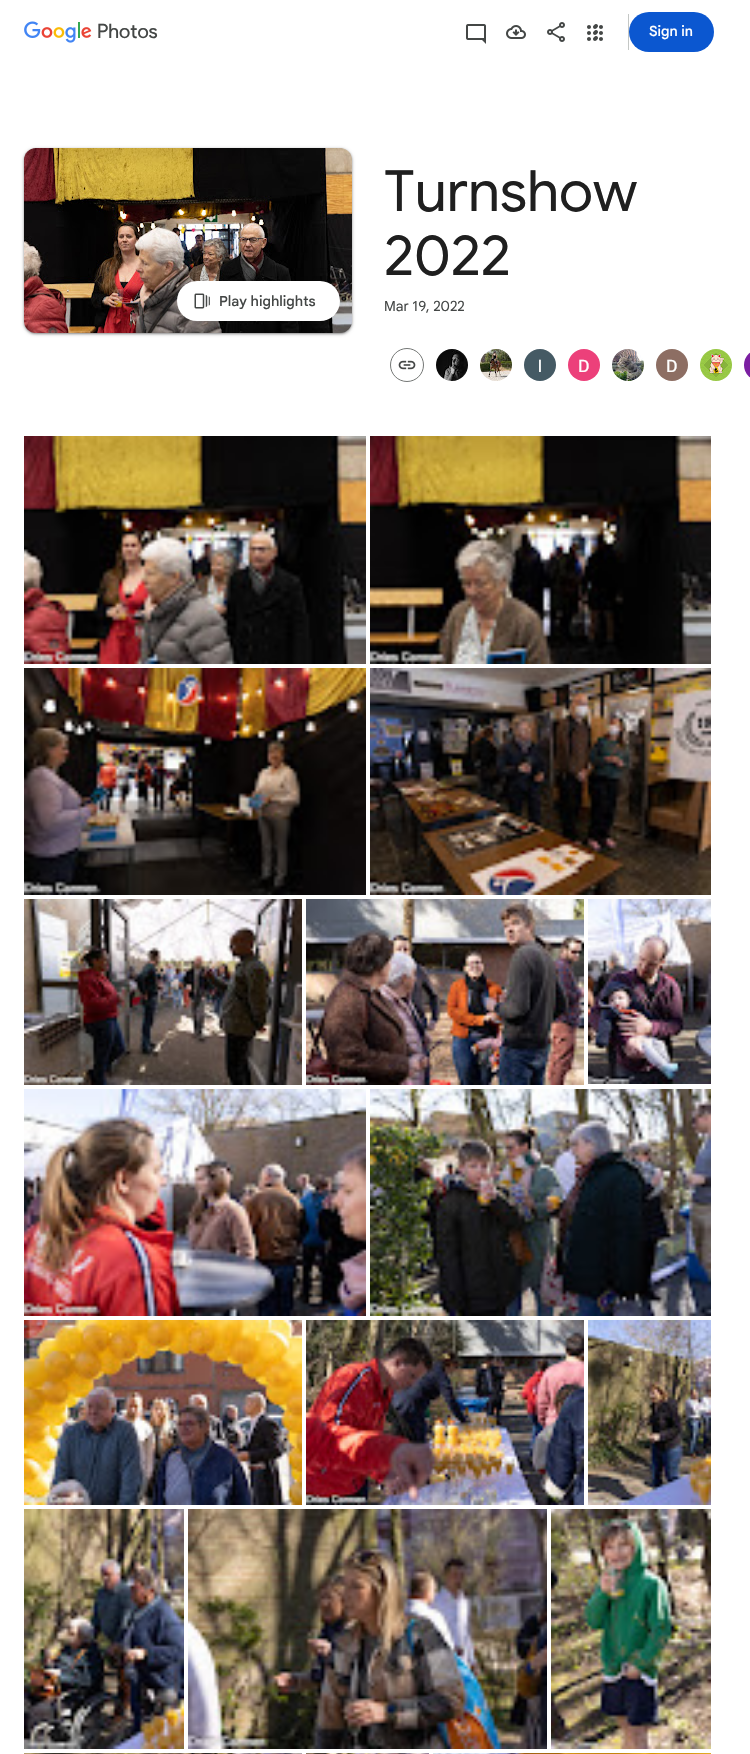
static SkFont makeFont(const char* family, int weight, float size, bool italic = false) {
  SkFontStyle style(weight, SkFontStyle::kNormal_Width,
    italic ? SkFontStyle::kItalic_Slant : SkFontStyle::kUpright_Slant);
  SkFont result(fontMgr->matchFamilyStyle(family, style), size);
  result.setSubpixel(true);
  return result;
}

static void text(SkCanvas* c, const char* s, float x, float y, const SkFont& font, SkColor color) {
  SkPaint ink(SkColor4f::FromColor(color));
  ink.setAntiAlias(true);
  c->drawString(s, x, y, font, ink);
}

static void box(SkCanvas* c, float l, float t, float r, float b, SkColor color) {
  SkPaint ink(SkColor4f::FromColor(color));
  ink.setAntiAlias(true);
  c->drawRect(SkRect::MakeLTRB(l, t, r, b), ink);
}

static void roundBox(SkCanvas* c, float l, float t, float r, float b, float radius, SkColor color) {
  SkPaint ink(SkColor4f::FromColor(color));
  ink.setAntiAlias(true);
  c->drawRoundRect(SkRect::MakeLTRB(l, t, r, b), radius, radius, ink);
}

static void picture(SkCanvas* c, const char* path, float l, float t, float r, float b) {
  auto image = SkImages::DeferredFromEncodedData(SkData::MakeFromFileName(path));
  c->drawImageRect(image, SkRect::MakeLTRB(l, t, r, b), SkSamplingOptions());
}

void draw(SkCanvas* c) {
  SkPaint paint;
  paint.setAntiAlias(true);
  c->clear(0xffffffff);
  picture(c, "img_01.png", 24, 21, 92, 43);
  SkFont face1 = makeFont("Product Sans", 400, 20);
  text(c, "Photos", 97, 38, face1, 0xff444746);
  picture(c, "img_02.png", 466, 24, 486, 44);
  picture(c, "img_03.png", 506, 25, 526, 39);
  picture(c, "img_04.png", 547, 22, 565, 42);
  picture(c, "img_05.png", 594, 24, 598, 40);
  box(c, 628, 14, 629, 50, 0xffc4c7c5);
  paint.setColor(0x26000000);
  paint.setMaskFilter(SkMaskFilter::MakeBlur(kNormal_SkBlurStyle, 1.5f));
  c->drawRoundRect(SkRect::MakeLTRB(23, 148, 353, 335), 13, 13, paint);
  paint.setMaskFilter(nullptr);
  paint.setColor(0x4d000000);
  paint.setMaskFilter(SkMaskFilter::MakeBlur(kNormal_SkBlurStyle, 1));
  c->drawRoundRect(SkRect::MakeLTRB(24, 149, 352, 334), 12, 12, paint);
  paint.setMaskFilter(nullptr);
  picture(c, "img_06.png", 24, 148, 352, 333);
  roundBox(c, 177, 281, 340, 321, 20, 0xffffffff);
  picture(c, "img_07.png", 194, 293, 210, 309);
  SkFont face2 = makeFont("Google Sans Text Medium", 500, 14);
  text(c, "Play highlights", 219, 306, face2, 0xff444746);
  SkFont face3 = makeFont("Google Sans", 400, 57);
  text(c, "Turnshow", 384, 211, face3, 0xff1f1f1f);
  text(c, "2022", 384, 275, face3, 0xff1f1f1f);
  SkFont face4 = makeFont("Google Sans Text", 400, 14);
  text(c, "Mar 19, 2022", 384, 311, face4, 0xff444746);
  paint.setStyle(SkPaint::kStroke_Style);
  paint.setStrokeWidth(1);
  paint.setColor(0xff747775);
  c->drawCircle(407, 365, 16.5f, paint);
  picture(c, "img_08.png", 398, 360, 416, 370);
  picture(c, "img_09.png", 436, 349, 468, 381);
  picture(c, "img_10.png", 480, 349, 512, 381);
  picture(c, "img_11.png", 524, 349, 556, 381);
  picture(c, "img_12.png", 568, 349, 600, 381);
  picture(c, "img_13.png", 612, 349, 644, 381);
  picture(c, "img_14.png", 656, 349, 688, 381);
  picture(c, "img_15.png", 700, 349, 732, 381);
  picture(c, "img_16.png", 744, 352, 750, 378);
  picture(c, "img_17.png", 24, 436, 366, 664);
  picture(c, "img_18.png", 370, 436, 711, 664);
  picture(c, "img_19.png", 24, 668, 366, 895);
  picture(c, "img_20.png", 370, 668, 711, 895);
  picture(c, "img_21.png", 24, 899, 302, 1085);
  picture(c, "img_22.png", 306, 899, 584, 1085);
  picture(c, "img_23.png", 588, 899, 711, 1084);
  picture(c, "img_24.png", 24, 1089, 366, 1316);
  picture(c, "img_25.png", 370, 1089, 711, 1316);
  picture(c, "img_26.png", 24, 1320, 302, 1505);
  picture(c, "img_27.png", 306, 1320, 584, 1505);
  picture(c, "img_28.png", 588, 1320, 711, 1505);
  picture(c, "img_29.png", 24, 1509, 184, 1749);
  picture(c, "img_30.png", 188, 1509, 547, 1749);
  picture(c, "img_31.png", 551, 1509, 711, 1749);
  picture(c, "img_32.png", 24, 1753, 302, 1754);
  picture(c, "img_33.png", 306, 1753, 429, 1754);
  picture(c, "img_34.png", 433, 1753, 711, 1754);
  picture(c, "img_35.png", 587, 25, 603, 41);
  roundBox(c, 629, 12, 714, 52, 20, 0xff0b57d0);
  text(c, "Sign in", 649, 36, face2, 0xffffffff);
}
